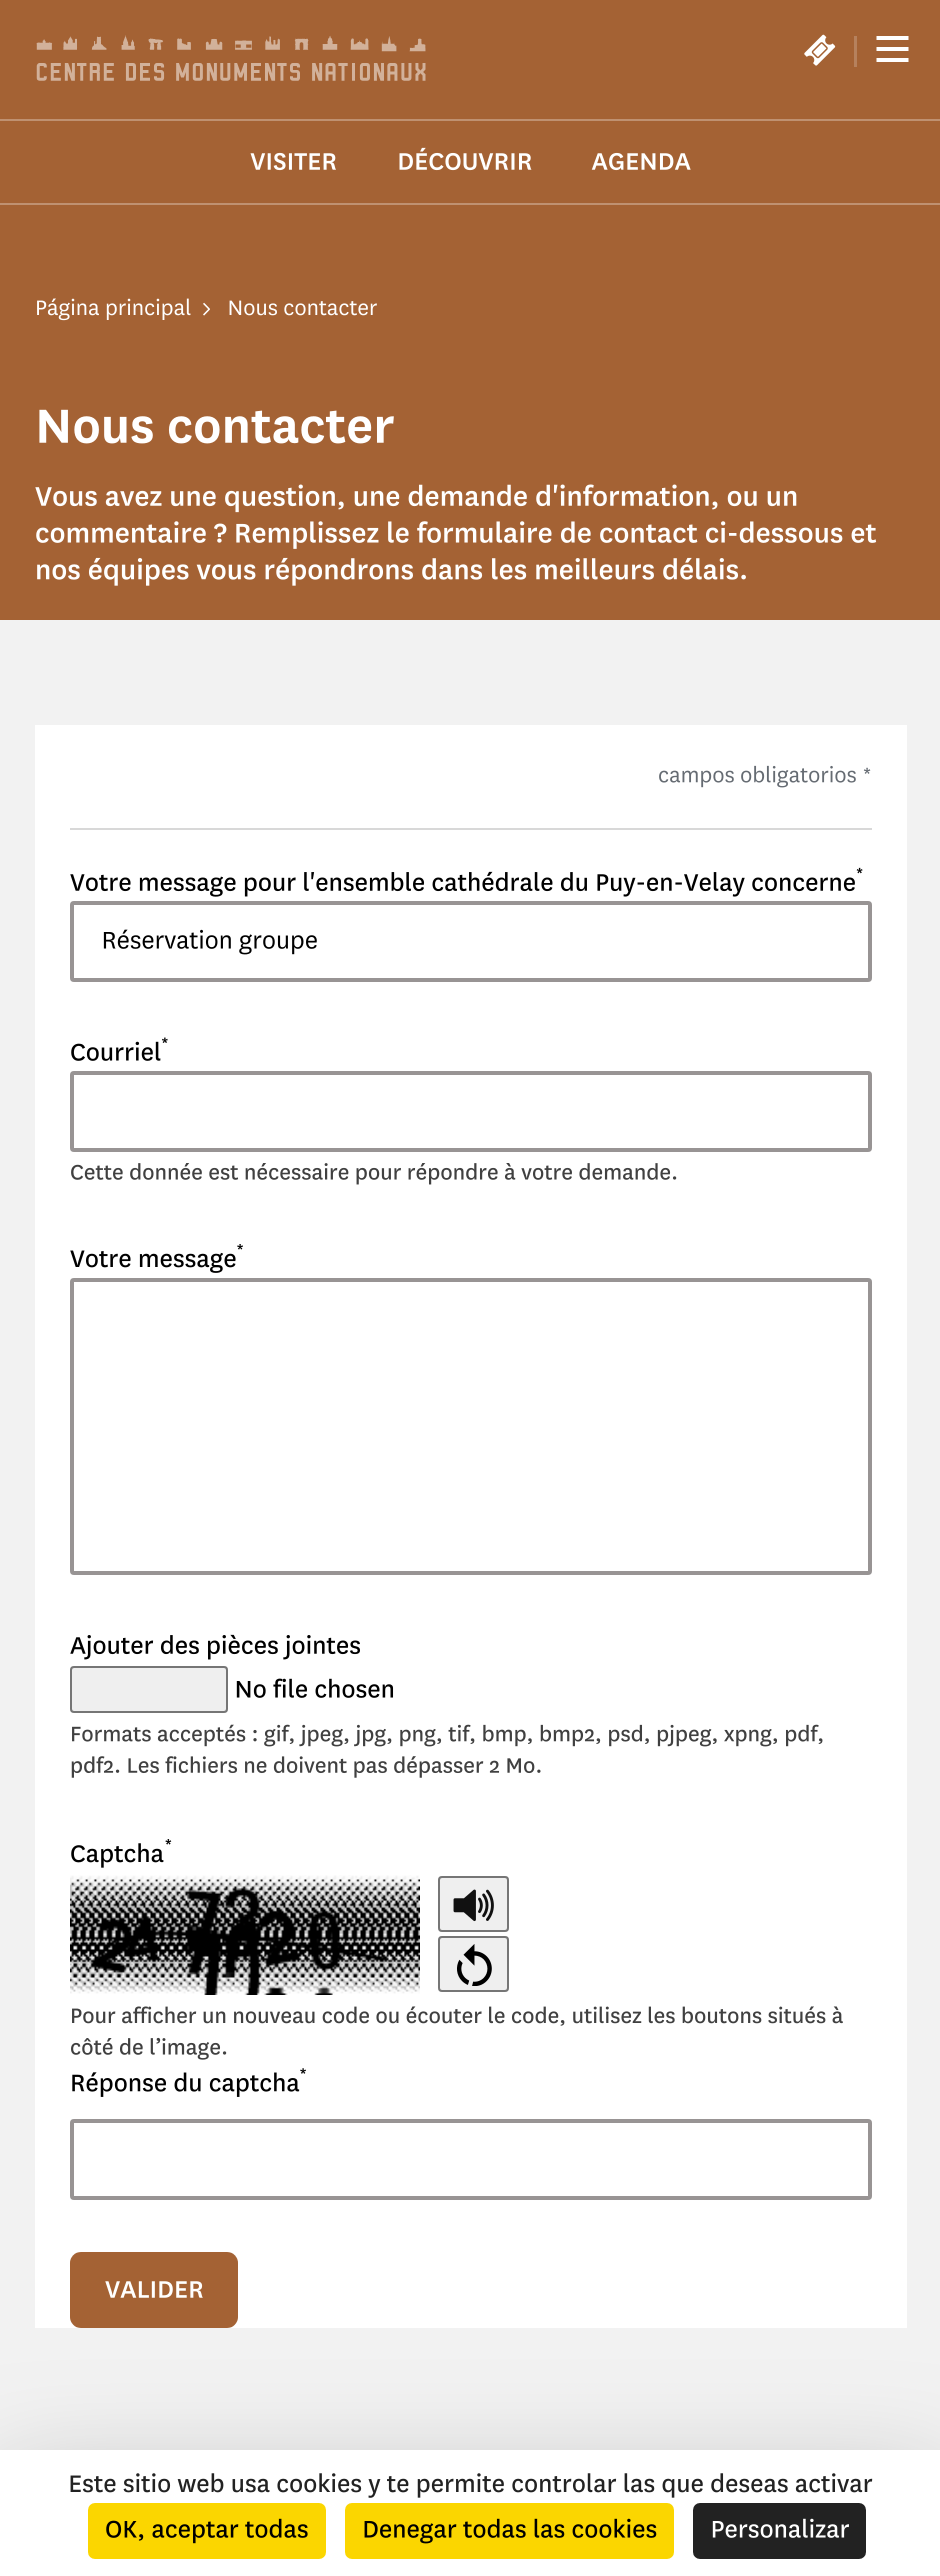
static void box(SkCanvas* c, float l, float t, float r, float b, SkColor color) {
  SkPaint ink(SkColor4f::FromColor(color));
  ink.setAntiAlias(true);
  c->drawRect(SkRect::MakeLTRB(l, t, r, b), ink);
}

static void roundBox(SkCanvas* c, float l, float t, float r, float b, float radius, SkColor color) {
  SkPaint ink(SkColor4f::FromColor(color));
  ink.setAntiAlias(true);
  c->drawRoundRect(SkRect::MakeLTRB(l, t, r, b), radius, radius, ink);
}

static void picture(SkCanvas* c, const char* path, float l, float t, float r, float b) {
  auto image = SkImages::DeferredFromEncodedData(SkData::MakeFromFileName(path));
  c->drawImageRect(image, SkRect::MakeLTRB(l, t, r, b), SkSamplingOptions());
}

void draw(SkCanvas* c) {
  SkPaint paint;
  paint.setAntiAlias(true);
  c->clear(0xffa46234);
  picture(c, "img_01.png", 36, 35, 426, 81);
  picture(c, "img_02.png", 804, 34, 836, 66);
  box(c, 854, 36, 857, 67, 0xffb6815d);
  paint.setColor(0xffffffff);
  c->drawPath(SkPathBuilder(SkPathFillType::kEvenOdd).moveTo(908.5f, 47).lineTo(876.5f, 47).lineTo(876.5f, 51).lineTo(908.5f, 51).close().moveTo(876.5f, 62).lineTo(908.5f, 62).lineTo(908.5f, 58).lineTo(876.5f, 58).close().moveTo(876.5f, 36).lineTo(876.5f, 40).lineTo(908.5f, 40).lineTo(908.5f, 36).close().detach(), paint);
  box(c, 0, 119, 940, 121, 0xffbf9171);
  picture(c, "img_03.png", 250, 152, 336, 171);
  picture(c, "img_04.png", 399, 147, 532, 171);
  picture(c, "img_05.png", 591, 152, 691, 171);
  box(c, 0, 203, 940, 205, 0xffbf9171);
  picture(c, "img_06.png", 37, 298, 191, 321);
  picture(c, "img_07.png", 203, 302, 210, 316);
  picture(c, "img_08.png", 229, 300, 377, 316);
  picture(c, "img_09.png", 39, 409, 394, 444);
  picture(c, "img_10.png", 35, 484, 797, 513);
  picture(c, "img_11.png", 36, 521, 877, 549);
  picture(c, "img_12.png", 37, 557, 746, 586);
  box(c, 0, 620, 940, 2450, 0xfff2f2f2);
  box(c, 35, 725, 907, 2328, 0xffffffff);
  picture(c, "img_13.png", 659, 765, 856, 788);
  picture(c, "img_14.png", 863, 767, 871, 774);
  box(c, 70, 828, 872, 830, 0xffd8d8d8);
  picture(c, "img_15.png", 70, 871, 855, 897);
  picture(c, "img_16.png", 856, 867, 863, 874);
  paint.setStyle(SkPaint::kStroke_Style);
  paint.setStrokeWidth(4);
  paint.setColor(0xff989494);
  c->drawRoundRect(SkRect::MakeLTRB(72, 903, 870, 980), 2, 2, paint);
  picture(c, "img_17.png", 103, 929, 317, 955);
  picture(c, "img_18.png", 162, 1037, 168, 1043);
  picture(c, "img_19.png", 71, 1041, 161, 1061);
  c->drawRoundRect(SkRect::MakeLTRB(72, 1073, 870, 1150), 2, 2, paint);
  picture(c, "img_20.png", 71, 1163, 677, 1185);
  picture(c, "img_21.png", 237, 1244, 243, 1250);
  picture(c, "img_22.png", 70, 1250, 236, 1273);
  c->drawRoundRect(SkRect::MakeLTRB(72, 1280, 870, 1573), 2, 2, paint);
  picture(c, "img_23.png", 70, 1634, 360, 1660);
  paint.setStyle(SkPaint::kFill_Style);
  paint.setColor(0xffefefef);
  c->drawRoundRect(SkRect::MakeLTRB(71, 1667, 227, 1712), 3, 3, paint);
  paint.setStyle(SkPaint::kStroke_Style);
  paint.setStrokeWidth(2);
  paint.setColor(0xff767676);
  c->drawRoundRect(SkRect::MakeLTRB(71, 1667, 227, 1712), 3, 3, paint);
  picture(c, "img_24.png", 236, 1678, 394, 1698);
  picture(c, "img_25.png", 72, 1724, 823, 1747);
  picture(c, "img_26.png", 71, 1756, 541, 1778);
  picture(c, "img_27.png", 165, 1839, 172, 1845);
  picture(c, "img_28.png", 71, 1843, 164, 1868);
  picture(c, "img_29.png", 70, 1875, 420, 1995);
  paint.setStyle(SkPaint::kFill_Style);
  paint.setColor(0xffefefef);
  c->drawRoundRect(SkRect::MakeLTRB(439, 1877, 508, 1931), 3, 3, paint);
  paint.setStyle(SkPaint::kStroke_Style);
  paint.setColor(0xff767676);
  c->drawRoundRect(SkRect::MakeLTRB(439, 1877, 508, 1931), 3, 3, paint);
  picture(c, "img_30.png", 453, 1889, 494, 1922);
  paint.setStyle(SkPaint::kFill_Style);
  paint.setColor(0xffefefef);
  c->drawRoundRect(SkRect::MakeLTRB(439, 1937, 508, 1991), 3, 3, paint);
  paint.setStyle(SkPaint::kStroke_Style);
  paint.setColor(0xff767676);
  c->drawRoundRect(SkRect::MakeLTRB(439, 1937, 508, 1991), 3, 3, paint);
  picture(c, "img_31.png", 457, 1944, 492, 1986);
  picture(c, "img_32.png", 72, 2006, 843, 2026);
  picture(c, "img_33.png", 71, 2037, 227, 2060);
  picture(c, "img_34.png", 300, 2068, 306, 2074);
  picture(c, "img_35.png", 72, 2072, 300, 2097);
  paint.setStrokeWidth(4);
  paint.setColor(0xff989494);
  c->drawRoundRect(SkRect::MakeLTRB(72, 2121, 870, 2198), 2, 2, paint);
  roundBox(c, 70, 2252, 238, 2328, 11, 0xffa46234);
  picture(c, "img_36.png", 105, 2281, 203, 2298);
  paint.setStyle(SkPaint::kFill_Style);
  paint.setColor(0x40000000);
  paint.setMaskFilter(SkMaskFilter::MakeBlur(kNormal_SkBlurStyle, 52.5f));
  c->drawRect(SkRect::MakeLTRB(0, 2485, 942, 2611), paint);
  paint.setMaskFilter(nullptr);
  box(c, 0, 2450, 940, 2576, 0xffffffff);
  picture(c, "img_37.png", 70, 2473, 873, 2498);
  roundBox(c, 88, 2503, 326, 2559, 7, 0xfffbd600);
  picture(c, "img_38.png", 106, 2518, 308, 2544);
  roundBox(c, 345, 2503, 674, 2559, 7, 0xfffbd600);
  picture(c, "img_39.png", 364, 2518, 657, 2544);
  roundBox(c, 693, 2503, 866, 2559, 7, 0xff222222);
  picture(c, "img_40.png", 712, 2518, 849, 2538);
}
